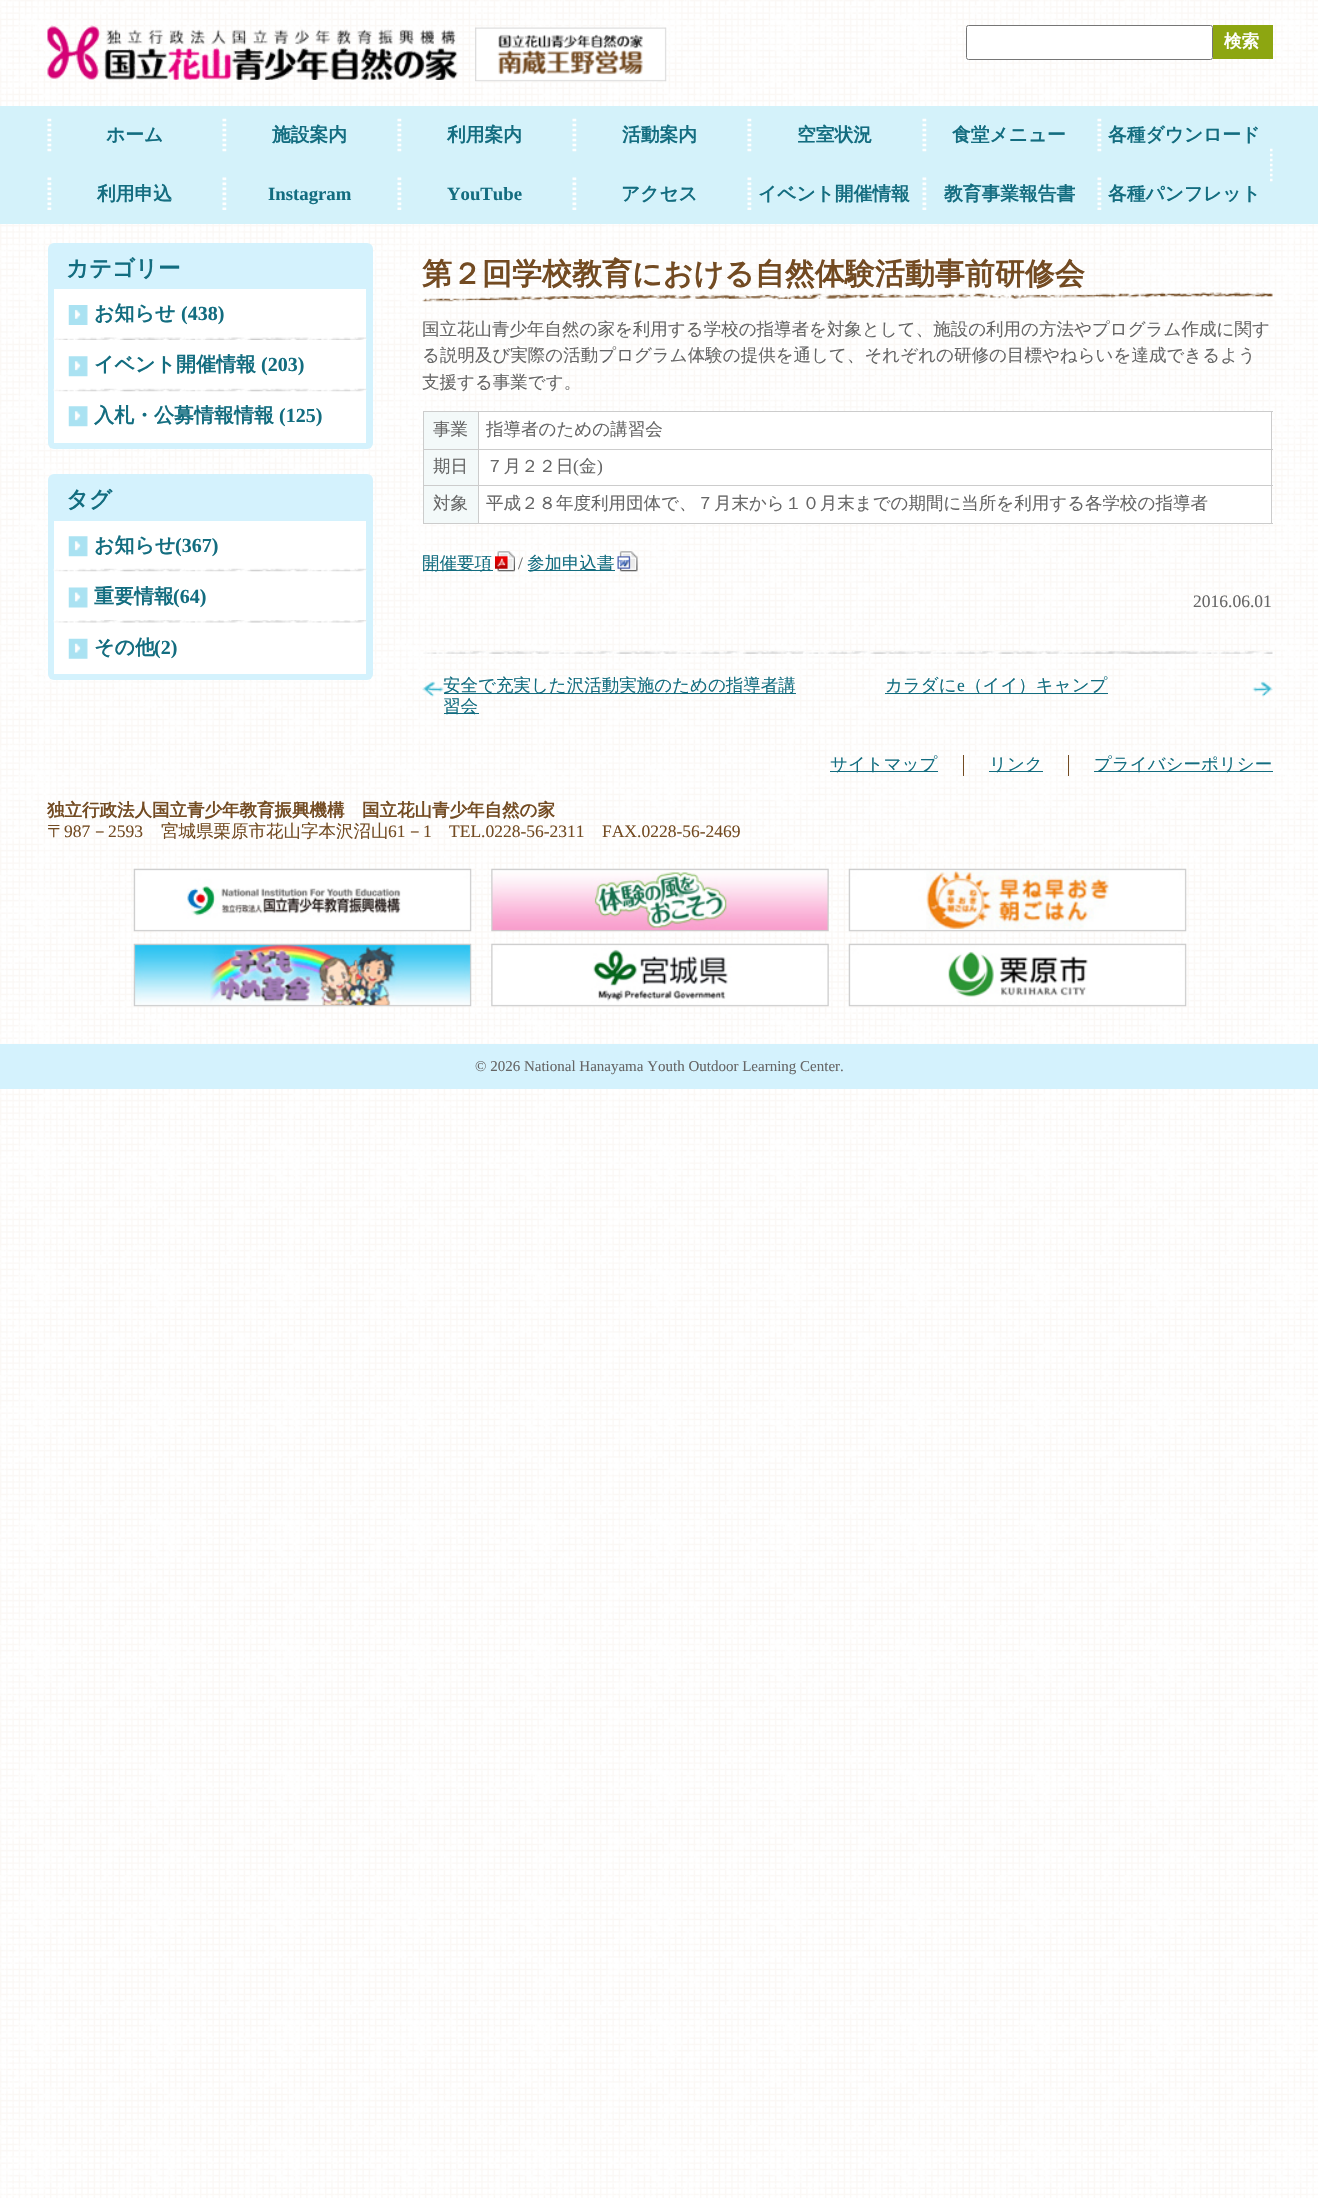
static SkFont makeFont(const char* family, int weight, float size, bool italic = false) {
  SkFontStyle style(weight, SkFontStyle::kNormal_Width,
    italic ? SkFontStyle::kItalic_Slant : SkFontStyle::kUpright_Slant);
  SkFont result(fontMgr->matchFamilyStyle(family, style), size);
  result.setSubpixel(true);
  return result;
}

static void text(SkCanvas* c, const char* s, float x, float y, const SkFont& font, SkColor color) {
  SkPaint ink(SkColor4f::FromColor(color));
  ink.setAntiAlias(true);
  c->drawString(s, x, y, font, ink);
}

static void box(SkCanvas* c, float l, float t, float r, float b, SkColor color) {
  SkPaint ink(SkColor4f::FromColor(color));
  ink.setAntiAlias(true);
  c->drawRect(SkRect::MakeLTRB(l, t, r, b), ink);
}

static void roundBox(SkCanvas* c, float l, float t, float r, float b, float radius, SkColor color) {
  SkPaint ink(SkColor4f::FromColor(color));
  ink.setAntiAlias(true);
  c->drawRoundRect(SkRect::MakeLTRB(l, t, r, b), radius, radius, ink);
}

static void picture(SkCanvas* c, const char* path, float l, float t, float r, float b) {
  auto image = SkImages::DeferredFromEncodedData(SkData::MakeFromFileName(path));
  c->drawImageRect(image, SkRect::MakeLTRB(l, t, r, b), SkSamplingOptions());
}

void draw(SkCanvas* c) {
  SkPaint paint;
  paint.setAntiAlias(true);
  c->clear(0xffffffff);
  picture(c, "img_01.png", 0, 0, 1318, 2198);
  picture(c, "img_02.png", 47, 25, 458, 80);
  picture(c, "img_03.png", 475, 27, 667, 82);
  paint.setColor(0xffffffff);
  c->drawRoundRect(SkRect::MakeLTRB(966.5f, 25.5f, 1212.5f, 59.5f), 2, 2, paint);
  paint.setStyle(SkPaint::kStroke_Style);
  paint.setStrokeWidth(1);
  paint.setColor(0xff767676);
  c->drawRoundRect(SkRect::MakeLTRB(966.5f, 25.5f, 1212.5f, 59.5f), 2, 2, paint);
  box(c, 1213, 25, 1273, 59, 0xff8da611);
  SkFont face1 = makeFont("WenQuanYi Zen Hei", 700, 17.5f);
  text(c, "検索", 1224, 47, face1, 0xffffffff);
  box(c, 0, 106, 1318, 224, 0xffd4f2fa);
  picture(c, "img_04.png", 1270, 148, 1273, 182);
  picture(c, "img_05.png", 47, 118, 52, 152);
  SkFont face2 = makeFont("WenQuanYi Zen Hei", 700, 18.75f);
  text(c, "ホーム", 106, 141, face2, 0xff136d80);
  picture(c, "img_05.png", 222, 118, 227, 152);
  text(c, "施設案内", 272, 141, face2, 0xff136d80);
  picture(c, "img_05.png", 397, 118, 402, 152);
  text(c, "利用案内", 447, 141, face2, 0xff136d80);
  picture(c, "img_05.png", 572, 118, 577, 152);
  text(c, "活動案内", 622, 141, face2, 0xff136d80);
  picture(c, "img_05.png", 747, 118, 752, 152);
  text(c, "空室状況", 797, 141, face2, 0xff136d80);
  picture(c, "img_05.png", 922, 118, 927, 152);
  text(c, "食堂メニュー", 952, 141, face2, 0xff136d80);
  picture(c, "img_05.png", 1097, 118, 1102, 152);
  text(c, "各種ダウンロード", 1108, 141, face2, 0xff136d80);
  picture(c, "img_06.png", 47, 177, 52, 210);
  text(c, "利用申込", 97, 200, face2, 0xff136d80);
  picture(c, "img_06.png", 222, 177, 227, 210);
  SkFont face3 = makeFont("Liberation Serif", 700, 18.75f);
  text(c, "Instagram", 268, 200, face3, 0xff136d80);
  picture(c, "img_06.png", 397, 177, 402, 210);
  text(c, "YouTube", 447, 200, face3, 0xff136d80);
  picture(c, "img_06.png", 572, 177, 577, 210);
  text(c, "アクセス", 621, 200, face2, 0xff136d80);
  picture(c, "img_06.png", 747, 177, 752, 210);
  text(c, "イベント開催情報", 758, 200, face2, 0xff136d80);
  picture(c, "img_06.png", 922, 177, 927, 210);
  text(c, "教育事業報告書", 944, 200, face2, 0xff136d80);
  picture(c, "img_06.png", 1097, 177, 1102, 210);
  text(c, "各種パンフレット", 1108, 200, face2, 0xff136d80);
  roundBox(c, 48, 243, 373, 449, 6, 0xffd4f2fd);
  SkFont face4 = makeFont("WenQuanYi Zen Hei", 700, 22.5f);
  text(c, "カテゴリー", 66, 276, face4, 0xff136d80);
  box(c, 54, 289, 366, 443, 0xffffffff);
  picture(c, "img_07.png", 53, 337, 367, 340);
  picture(c, "img_08.png", 68, 305, 88, 325);
  SkFont face5 = makeFont("WenQuanYi Zen Hei", 700, 20);
  text(c, "お知らせ", 94, 320, face5, 0xff136d80);
  SkFont face6 = makeFont("Liberation Serif", 700, 20);
  text(c, "(438)", 181, 320, face6, 0xff136d80);
  picture(c, "img_09.png", 53, 388, 367, 392);
  picture(c, "img_10.png", 68, 356, 88, 377);
  text(c, "イベント開催情報", 94, 371, face5, 0xff136d80);
  text(c, "(203)", 261, 371, face6, 0xff136d80);
  picture(c, "img_10.png", 68, 406, 88, 427);
  text(c, "入札・公募情報情報", 94, 422, face5, 0xff136d80);
  text(c, "(125)", 279, 422, face6, 0xff136d80);
  roundBox(c, 48, 474, 373, 680, 6, 0xffd4f2fd);
  text(c, "タグ", 66, 507, face4, 0xff136d80);
  box(c, 54, 521, 366, 674, 0xffffffff);
  picture(c, "img_09.png", 53, 568, 367, 572);
  picture(c, "img_10.png", 68, 536, 88, 557);
  text(c, "お知らせ", 94, 552, face5, 0xff136d80);
  text(c, "(367)", 175, 552, face6, 0xff136d80);
  picture(c, "img_11.png", 53, 620, 367, 623);
  picture(c, "img_12.png", 68, 587, 88, 608);
  text(c, "重要情報", 94, 603, face5, 0xff136d80);
  text(c, "(64)", 173, 603, face6, 0xff136d80);
  picture(c, "img_13.png", 68, 638, 88, 659);
  text(c, "その他", 94, 654, face5, 0xff136d80);
  text(c, "(2)", 154, 654, face6, 0xff136d80);
  picture(c, "img_14.png", 422, 292, 1273, 302);
  SkFont face7 = makeFont("WenQuanYi Zen Hei", 700, 30);
  text(c, "第２回学校教育における自然体験活動事前研修会", 422, 284, face7, 0xff734b22);
  SkFont face8 = makeFont("WenQuanYi Zen Hei", 500, 17.5f);
  text(c, "国立花山青少年自然の家を利用する学校の指導者を対象として、施設の利用の方法やプログラム作成に関す", 422, 335, face8, 0xff666666);
  text(c, "る説明及び実際の活動プログラム体験の提供を通して、それぞれの研修の目標やねらいを達成できるよう", 422, 361, face8, 0xff666666);
  text(c, "支援する事業です。", 422, 388, face8, 0xff666666);
  box(c, 424, 412, 478, 449, 0xfff3f9f9);
  box(c, 478, 411, 1273, 412, 0xffcccccc);
  box(c, 478, 449, 1273, 450, 0xffcccccc);
  box(c, 478, 485, 1273, 486, 0xffcccccc);
  box(c, 1271, 485, 1272, 524, 0xffcccccc);
  box(c, 478, 523, 1273, 524, 0xffcccccc);
  box(c, 478, 485, 479, 524, 0xffcccccc);
  box(c, 423, 485, 479, 486, 0xffcccccc);
  box(c, 478, 449, 479, 486, 0xffcccccc);
  box(c, 423, 449, 479, 450, 0xffcccccc);
  box(c, 478, 411, 479, 450, 0xffcccccc);
  box(c, 423, 411, 479, 412, 0xffcccccc);
  box(c, 423, 523, 479, 524, 0xffcccccc);
  box(c, 423, 485, 424, 524, 0xffcccccc);
  box(c, 423, 449, 424, 486, 0xffcccccc);
  box(c, 423, 411, 424, 450, 0xffcccccc);
  text(c, "事業", 433, 435, face8, 0xff666666);
  box(c, 479, 412, 1271, 449, 0xffffffff);
  box(c, 1271, 449, 1272, 486, 0xffcccccc);
  box(c, 1271, 411, 1272, 450, 0xffcccccc);
  text(c, "指導者のための講習会", 486, 435, face8, 0xff666666);
  box(c, 424, 450, 478, 485, 0xfff3f9f9);
  text(c, "期日", 433, 472, face8, 0xff666666);
  box(c, 479, 450, 1271, 485, 0xffffffff);
  text(c, "７月２２日", 486, 472, face8, 0xff666666);
  SkFont face9 = makeFont("Liberation Serif", 400, 17.5f);
  text(c, "(", 573, 472, face9, 0xff666666);
  text(c, "金", 579, 472, face8, 0xff666666);
  text(c, ")", 597, 472, face9, 0xff666666);
  box(c, 424, 486, 478, 523, 0xfff3f9f9);
  text(c, "対象", 433, 509, face8, 0xff666666);
  box(c, 479, 486, 1271, 523, 0xffffffff);
  text(c, "平成２８年度利用団体で、７月末から１０月末までの期間に当所を利用する各学校の指導者", 486, 509, face8, 0xff666666);
  box(c, 423, 570, 493, 571, 0xff136d80);
  text(c, "開催要項", 422, 569, face8, 0xff136d80);
  picture(c, "img_15.png", 495, 551, 515, 572);
  text(c, "/", 518, 569, face9, 0xff666666);
  box(c, 528, 570, 615, 571, 0xff136d80);
  text(c, "参加申込書", 527, 569, face8, 0xff136d80);
  picture(c, "img_16.png", 617, 551, 638, 572);
  text(c, "2016.06.01", 1193, 607, face9, 0xff666666);
  picture(c, "img_17.png", 423, 651, 1273, 654);
  picture(c, "img_18.png", 422, 681, 444, 697);
  box(c, 444, 693, 796, 694, 0xff136d80);
  text(c, "安全で充実した沢活動実施のための指導者講", 443, 691, face8, 0xff136d80);
  box(c, 444, 713, 479, 714, 0xff136d80);
  text(c, "習会", 443, 712, face8, 0xff136d80);
  picture(c, "img_19.png", 1252, 681, 1273, 697);
  box(c, 885, 693, 1108, 694, 0xff136d80);
  text(c, "カラダに", 885, 691, face8, 0xff136d80);
  text(c, "e", 957, 691, face9, 0xff136d80);
  text(c, "（イイ）キャンプ", 965, 691, face8, 0xff136d80);
  box(c, 963, 755, 964, 776, 0xff734b22);
  box(c, 830, 771, 938, 772, 0xff136d80);
  text(c, "サイトマップ", 830, 770, face8, 0xff136d80);
  box(c, 1068, 755, 1069, 776, 0xff734b22);
  box(c, 989, 771, 1043, 772, 0xff136d80);
  text(c, "リンク", 989, 770, face8, 0xff136d80);
  box(c, 1094, 771, 1273, 772, 0xff136d80);
  text(c, "プライバシーポリシー", 1094, 770, face8, 0xff136d80);
  text(c, "独立行政法人国立青少年教育振興機構　国立花山青少年自然の家", 47, 816, face1, 0xff734b22);
  text(c, "〒", 47, 837, face8, 0xff734b22);
  text(c, "987", 64, 837, face9, 0xff734b22);
  text(c, "－", 91, 837, face8, 0xff734b22);
  text(c, "2593", 108, 837, face9, 0xff734b22);
  text(c, "宮城県栗原市花山字本沢沼山", 161, 837, face8, 0xff734b22);
  text(c, "61", 388, 837, face9, 0xff734b22);
  text(c, "－", 406, 837, face8, 0xff734b22);
  text(c, "1", 423, 837, face9, 0xff734b22);
  text(c, "TEL.0228-56-2311", 449, 837, face9, 0xff734b22);
  text(c, "FAX.0228-56-2469", 602, 837, face9, 0xff734b22);
  picture(c, "img_20.png", 133, 868, 472, 932);
  picture(c, "img_21.png", 491, 868, 829, 932);
  picture(c, "img_22.png", 848, 868, 1187, 932);
  picture(c, "img_23.png", 133, 943, 472, 1007);
  picture(c, "img_24.png", 491, 943, 829, 1007);
  picture(c, "img_25.png", 848, 943, 1187, 1007);
  box(c, 0, 1044, 1318, 1089, 0xffd4f2fd);
  SkFont face10 = makeFont("Liberation Serif", 400, 15);
  text(c, "© 2026 National Hanayama Youth Outdoor Learning Center.", 475, 1071, face10, 0xff666666);
}
